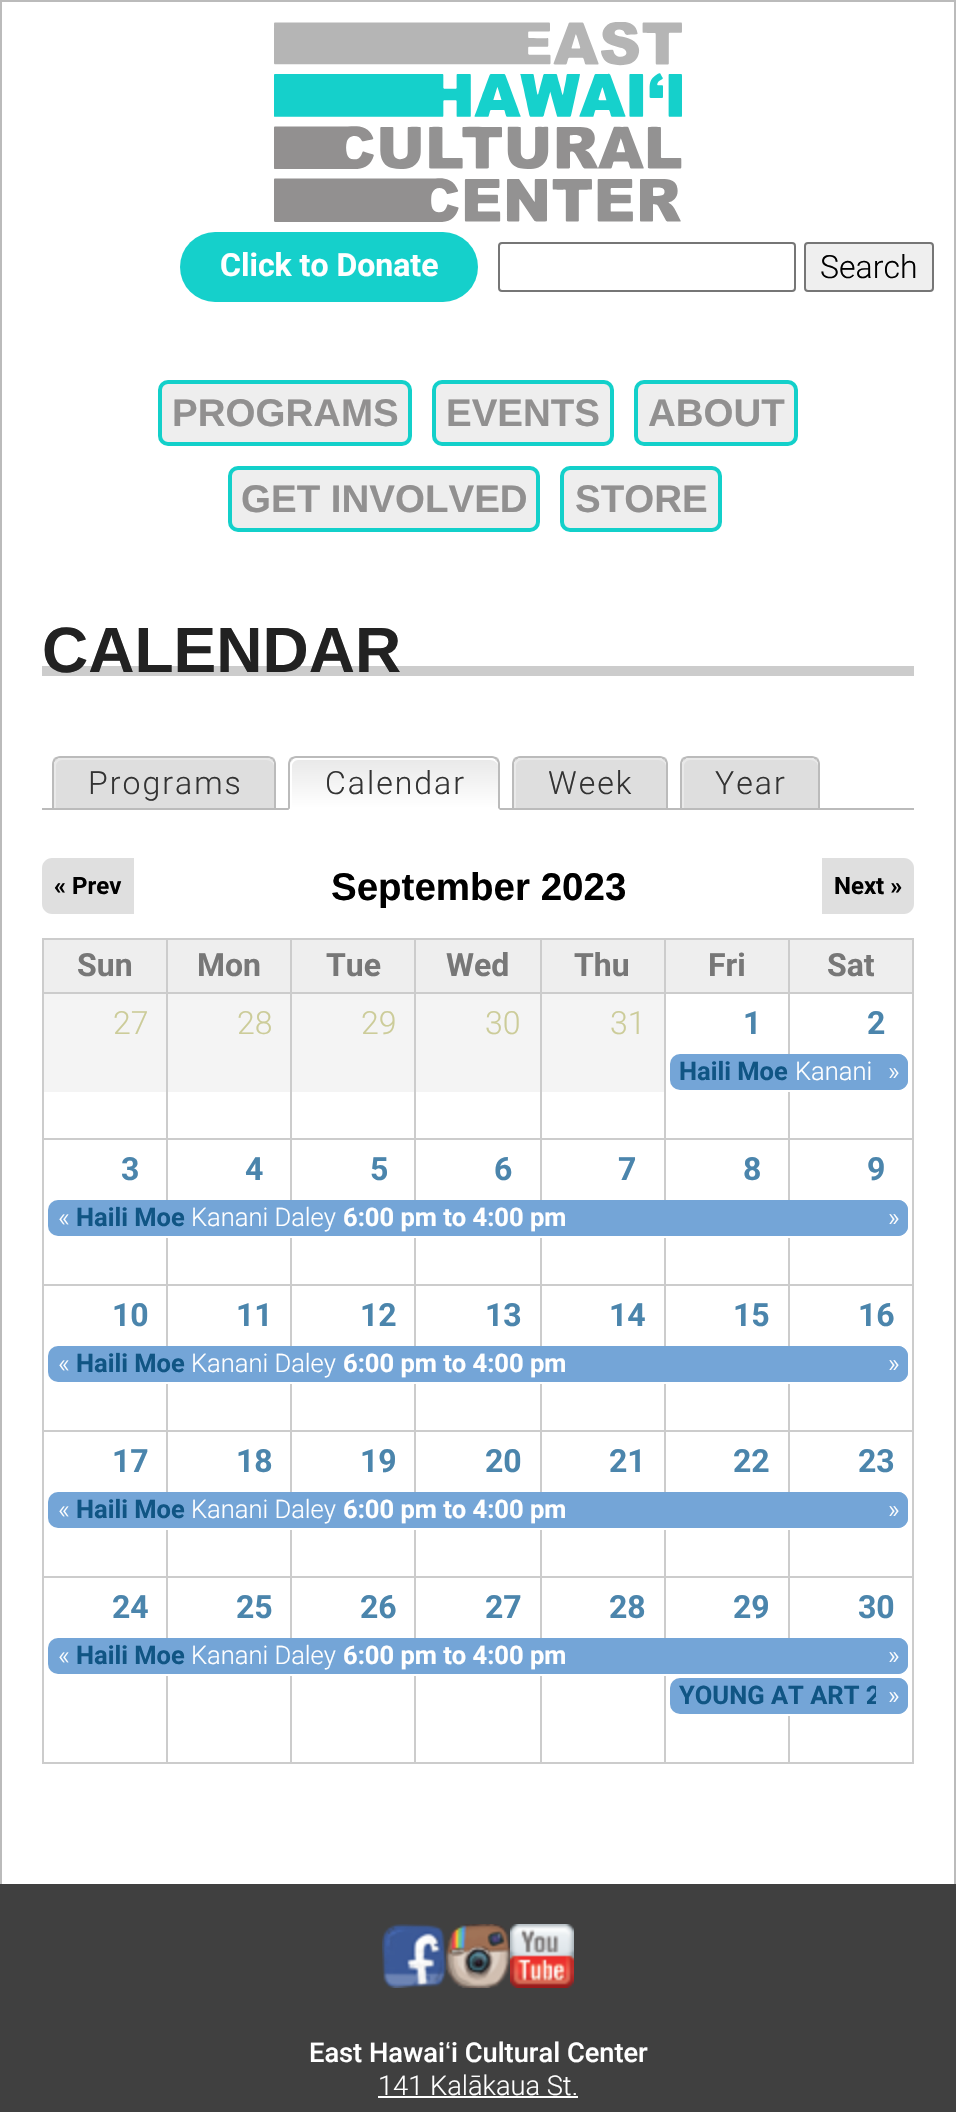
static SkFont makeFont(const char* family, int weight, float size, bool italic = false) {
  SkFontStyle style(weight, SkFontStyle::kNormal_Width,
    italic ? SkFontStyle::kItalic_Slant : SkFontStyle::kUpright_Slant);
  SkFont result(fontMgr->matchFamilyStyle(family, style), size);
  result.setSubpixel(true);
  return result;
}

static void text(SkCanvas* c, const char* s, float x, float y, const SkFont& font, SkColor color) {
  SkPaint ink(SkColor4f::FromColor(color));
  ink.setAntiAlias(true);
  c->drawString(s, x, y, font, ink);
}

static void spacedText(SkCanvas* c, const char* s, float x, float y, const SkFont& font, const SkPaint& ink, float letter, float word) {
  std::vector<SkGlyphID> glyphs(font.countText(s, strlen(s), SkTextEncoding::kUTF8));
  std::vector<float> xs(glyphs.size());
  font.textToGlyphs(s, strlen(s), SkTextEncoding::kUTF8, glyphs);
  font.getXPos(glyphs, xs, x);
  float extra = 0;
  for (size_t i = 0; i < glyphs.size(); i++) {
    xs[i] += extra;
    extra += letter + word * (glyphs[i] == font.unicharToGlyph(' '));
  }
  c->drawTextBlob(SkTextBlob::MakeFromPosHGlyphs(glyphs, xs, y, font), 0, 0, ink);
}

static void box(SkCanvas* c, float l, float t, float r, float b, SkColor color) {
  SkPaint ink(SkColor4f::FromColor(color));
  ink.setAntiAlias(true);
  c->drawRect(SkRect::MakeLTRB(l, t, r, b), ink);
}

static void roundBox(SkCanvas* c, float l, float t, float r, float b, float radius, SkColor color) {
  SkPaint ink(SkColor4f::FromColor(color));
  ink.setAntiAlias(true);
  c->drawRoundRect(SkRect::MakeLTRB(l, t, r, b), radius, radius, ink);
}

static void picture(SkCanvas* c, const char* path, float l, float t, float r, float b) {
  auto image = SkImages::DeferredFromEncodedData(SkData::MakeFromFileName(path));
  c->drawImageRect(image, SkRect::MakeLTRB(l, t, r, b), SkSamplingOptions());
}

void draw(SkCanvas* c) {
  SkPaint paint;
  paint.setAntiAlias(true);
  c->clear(0xffffffff);
  box(c, 0, 0, 956, 2, 0xffbbbbbb);
  box(c, 954, 0, 956, 1884, 0xffbbbbbb);
  box(c, 0, 0, 2, 1884, 0xffbbbbbb);
  picture(c, "img_01.png", 274, 22, 682, 222);
  roundBox(c, 180, 232, 478, 302, 35, 0xff15d0cb);
  SkFont face1 = makeFont("Roboto", 700, 32);
  text(c, "Click to Donate", 220, 276, face1, 0xffffffff);
  paint.setStyle(SkPaint::kStroke_Style);
  paint.setStrokeWidth(2);
  paint.setColor(0xff767676);
  c->drawRoundRect(SkRect::MakeLTRB(499, 243, 795, 291), 3, 3, paint);
  paint.setStyle(SkPaint::kFill_Style);
  paint.setColor(0xffefefef);
  c->drawRoundRect(SkRect::MakeLTRB(805, 243, 933, 291), 3, 3, paint);
  paint.setStyle(SkPaint::kStroke_Style);
  paint.setColor(0xff767676);
  c->drawRoundRect(SkRect::MakeLTRB(805, 243, 933, 291), 3, 3, paint);
  SkFont face2 = makeFont("Roboto", 300, 32);
  text(c, "Search", 820, 278, face2, 0xff000000);
  paint.setStyle(SkPaint::kFill_Style);
  paint.setColor(0xffeeeeee);
  c->drawRoundRect(SkRect::MakeLTRB(160, 382, 410, 444), 8, 8, paint);
  paint.setStyle(SkPaint::kStroke_Style);
  paint.setStrokeWidth(4);
  paint.setColor(0xff13d0ca);
  c->drawRoundRect(SkRect::MakeLTRB(160, 382, 410, 444), 8, 8, paint);
  SkFont face3 = makeFont("Liberation Sans", 700, 38.5f);
  text(c, "PROGRAMS", 172, 426, face3, 0xff919090);
  paint.setStyle(SkPaint::kFill_Style);
  paint.setColor(0xffeeeeee);
  c->drawRoundRect(SkRect::MakeLTRB(434, 382, 612, 444), 8, 8, paint);
  paint.setStyle(SkPaint::kStroke_Style);
  paint.setColor(0xff13d0ca);
  c->drawRoundRect(SkRect::MakeLTRB(434, 382, 612, 444), 8, 8, paint);
  text(c, "EVENTS", 446, 426, face3, 0xff919090);
  paint.setStyle(SkPaint::kFill_Style);
  paint.setColor(0xffeeeeee);
  c->drawRoundRect(SkRect::MakeLTRB(636, 382, 796, 444), 8, 8, paint);
  paint.setStyle(SkPaint::kStroke_Style);
  paint.setColor(0xff13d0ca);
  c->drawRoundRect(SkRect::MakeLTRB(636, 382, 796, 444), 8, 8, paint);
  text(c, "ABOUT", 648, 426, face3, 0xff919090);
  paint.setStyle(SkPaint::kFill_Style);
  paint.setColor(0xffeeeeee);
  c->drawRoundRect(SkRect::MakeLTRB(230, 468, 538, 530), 8, 8, paint);
  paint.setStyle(SkPaint::kStroke_Style);
  paint.setColor(0xff13d0ca);
  c->drawRoundRect(SkRect::MakeLTRB(230, 468, 538, 530), 8, 8, paint);
  text(c, "GET INVOLVED", 241, 512, face3, 0xff919090);
  paint.setStyle(SkPaint::kFill_Style);
  paint.setColor(0xffeeeeee);
  c->drawRoundRect(SkRect::MakeLTRB(562, 468, 720, 530), 8, 8, paint);
  paint.setStyle(SkPaint::kStroke_Style);
  paint.setColor(0xff13d0ca);
  c->drawRoundRect(SkRect::MakeLTRB(562, 468, 720, 530), 8, 8, paint);
  text(c, "STORE", 575, 512, face3, 0xff919090);
  box(c, 42, 666, 914, 676, 0xffcccccc);
  SkFont face4 = makeFont("Liberation Sans", 700, 64);
  text(c, "CALENDAR", 42, 672, face4, 0xff222222);
  box(c, 42, 808, 914, 810, 0xffbbbbbb);
  paint.setStyle(SkPaint::kFill_Style);
  paint.setColor(0xffbbbbbb);
  c->drawPath(SkPathBuilder().moveTo(60, 756).cubicTo(58, 756, 56, 757, 54, 758).lineTo(56, 760).cubicTo(57, 759, 58, 758, 60, 758).lineTo(268, 758).cubicTo(270, 758, 271, 759, 272, 760).lineTo(274, 758).cubicTo(272, 757, 270, 756, 268, 756).close().detach(), paint);
  c->drawPath(SkPathBuilder().moveTo(276, 810).lineTo(276, 764).cubicTo(276, 762, 275, 760, 274, 758).lineTo(272, 760).cubicTo(273, 761, 274, 762, 274, 764).lineTo(274, 808).close().detach(), paint);
  c->drawPath(SkPathBuilder().moveTo(52, 810).lineTo(54, 808).lineTo(54, 764).cubicTo(54, 762, 55, 761, 56, 760).lineTo(54, 758).cubicTo(53, 760, 52, 762, 52, 764).close().detach(), paint);
  paint.setColor(0xffdedede);
  c->drawPath(SkPathBuilder().moveTo(62, 758).lineTo(266, 758).cubicTo(270.5f, 758, 274, 761.5f, 274, 766).lineTo(274, 808).lineTo(54, 808).lineTo(54, 766).cubicTo(54, 761.5f, 57.5f, 758, 62, 758).close().detach(), paint);
  paint.setColor(0xffe9e9e9);
  c->drawPath(SkPathBuilder(SkPathFillType::kEvenOdd).moveTo(62, 758).lineTo(266, 758).cubicTo(270, 758, 274, 762, 274, 766).lineTo(274, 808).lineTo(54, 808).lineTo(54, 766).cubicTo(54, 762, 58, 758, 62, 758).close().moveTo(62, 760).lineTo(266, 760).cubicTo(270, 760, 274, 763, 274, 766).lineTo(274, 808).lineTo(56, 808).lineTo(56, 766).cubicTo(56, 763, 59, 760, 62, 760).close().detach(), paint);
  paint.setColor(0xff333333);
  spacedText(c, "Programs", 88, 794, face2, paint, 2, 0);
  paint.setColor(0xffbbbbbb);
  c->drawPath(SkPathBuilder().moveTo(296, 756).cubicTo(294, 756, 292, 757, 290, 758).lineTo(292, 760).cubicTo(293, 759, 294, 758, 296, 758).lineTo(492, 758).cubicTo(494, 758, 495, 759, 496, 760).lineTo(498, 758).cubicTo(496, 757, 494, 756, 492, 756).close().detach(), paint);
  c->drawPath(SkPathBuilder().moveTo(500, 810).lineTo(500, 764).cubicTo(500, 762, 499, 760, 498, 758).lineTo(496, 760).cubicTo(497, 761, 498, 762, 498, 764).lineTo(498, 808).close().detach(), paint);
  paint.setColor(0xffffffff);
  c->drawPath(SkPathBuilder().moveTo(500, 810).lineTo(498, 808).lineTo(290, 808).lineTo(288, 810).close().detach(), paint);
  paint.setColor(0xffbbbbbb);
  c->drawPath(SkPathBuilder().moveTo(288, 810).lineTo(290, 808).lineTo(290, 764).cubicTo(290, 762, 291, 761, 292, 760).lineTo(290, 758).cubicTo(289, 760, 288, 762, 288, 764).close().detach(), paint);
  c->save();
  c->clipPath(SkPathBuilder().moveTo(298, 758).lineTo(490, 758).cubicTo(494.5f, 758, 498, 761.5f, 498, 766).lineTo(498, 808).lineTo(290, 808).lineTo(290, 766).cubicTo(290, 761.5f, 293.5f, 758, 298, 758).close().detach(), true);
  {
    const SkColor colors[] = {0xffe9e9e9, 0x00e9e9e9};
    const float stops[] = {0, 1};
    const SkPoint ends[] = {{395, 760}, {395, 808}};
    paint.setShader(SkGradientShader::MakeLinear(ends, colors, stops, 2, SkTileMode::kClamp));
    paint.setAlpha(255);
  }
  c->drawRect(SkRect::MakeLTRB(290, 760, 498, 807), paint);
  c->restore();
  paint.setShader(nullptr);
  paint.setColor(0xffffffff);
  c->drawPath(SkPathBuilder(SkPathFillType::kEvenOdd).moveTo(298, 758).lineTo(490, 758).cubicTo(494, 758, 498, 762, 498, 766).lineTo(498, 808).lineTo(290, 808).lineTo(290, 766).cubicTo(290, 762, 294, 758, 298, 758).close().moveTo(298, 760).lineTo(490, 760).cubicTo(494, 760, 498, 763, 498, 766).lineTo(498, 808).lineTo(292, 808).lineTo(292, 766).cubicTo(292, 763, 295, 760, 298, 760).close().detach(), paint);
  paint.setColor(0xff333333);
  spacedText(c, "Calendar", 325, 794, face2, paint, 2, 0);
  paint.setColor(0xffbbbbbb);
  c->drawPath(SkPathBuilder().moveTo(520, 756).cubicTo(518, 756, 516, 757, 514, 758).lineTo(516, 760).lineTo(519, 758).lineTo(661, 758).lineTo(664, 760).lineTo(666, 758).cubicTo(664, 757, 662, 756, 660, 756).close().detach(), paint);
  c->drawPath(SkPathBuilder().moveTo(668, 810).lineTo(668, 764).cubicTo(668, 762, 667, 760, 666, 758).lineTo(664, 760).cubicTo(665, 761, 666, 762, 666, 764).lineTo(666, 808).close().detach(), paint);
  c->drawPath(SkPathBuilder().moveTo(512, 810).lineTo(514, 808).lineTo(514, 764).cubicTo(514, 762, 515, 761, 516, 760).lineTo(514, 758).cubicTo(513, 760, 512, 762, 512, 764).close().detach(), paint);
  paint.setColor(0xffdedede);
  c->drawPath(SkPathBuilder().moveTo(522, 758).lineTo(658, 758).cubicTo(662.5f, 758, 666, 761.5f, 666, 766).lineTo(666, 808).lineTo(514, 808).lineTo(514, 766).cubicTo(514, 761.5f, 517.5f, 758, 522, 758).close().detach(), paint);
  paint.setColor(0xffe9e9e9);
  c->drawPath(SkPathBuilder(SkPathFillType::kEvenOdd).moveTo(522, 758).lineTo(658, 758).cubicTo(662, 758, 666, 762, 666, 766).lineTo(666, 808).lineTo(514, 808).lineTo(514, 766).cubicTo(514, 762, 518, 758, 522, 758).close().moveTo(522, 760).lineTo(658, 760).cubicTo(662, 760, 666, 763, 666, 766).lineTo(666, 808).lineTo(516, 808).lineTo(516, 766).cubicTo(516, 763, 519, 760, 522, 760).close().detach(), paint);
  paint.setColor(0xff333333);
  spacedText(c, "Week", 548, 794, face2, paint, 2, 0);
  paint.setColor(0xffbbbbbb);
  c->drawPath(SkPathBuilder().moveTo(688, 756).cubicTo(686, 756, 684, 757, 682, 758).lineTo(684, 760).lineTo(687, 758).lineTo(813, 758).lineTo(816, 760).lineTo(818, 758).cubicTo(816, 757, 814, 756, 812, 756).close().detach(), paint);
  c->drawPath(SkPathBuilder().moveTo(820, 810).lineTo(820, 764).cubicTo(820, 762, 819, 760, 818, 758).lineTo(816, 760).cubicTo(817, 761, 818, 762, 818, 764).lineTo(818, 808).close().detach(), paint);
  c->drawPath(SkPathBuilder().moveTo(680, 810).lineTo(682, 808).lineTo(682, 764).cubicTo(682, 762, 683, 761, 684, 760).lineTo(682, 758).cubicTo(681, 760, 680, 762, 680, 764).close().detach(), paint);
  paint.setColor(0xffdedede);
  c->drawPath(SkPathBuilder().moveTo(690, 758).lineTo(810, 758).cubicTo(814.5f, 758, 818, 761.5f, 818, 766).lineTo(818, 808).lineTo(682, 808).lineTo(682, 766).cubicTo(682, 761.5f, 685.5f, 758, 690, 758).close().detach(), paint);
  paint.setColor(0xffe9e9e9);
  c->drawPath(SkPathBuilder(SkPathFillType::kEvenOdd).moveTo(690, 758).lineTo(810, 758).cubicTo(814, 758, 818, 762, 818, 766).lineTo(818, 808).lineTo(682, 808).lineTo(682, 766).cubicTo(682, 762, 686, 758, 690, 758).close().moveTo(690, 760).lineTo(810, 760).cubicTo(814, 760, 818, 763, 818, 766).lineTo(818, 808).lineTo(684, 808).lineTo(684, 766).cubicTo(684, 763, 687, 760, 690, 760).close().detach(), paint);
  paint.setColor(0xff333333);
  spacedText(c, "Year", 715, 794, face2, paint, 2, 0);
  text(c, "September 2023", 331, 900, face3, 0xff000000);
  paint.setColor(0xffdfdfdf);
  c->drawPath(SkPathBuilder().moveTo(52, 858).lineTo(134, 858).lineTo(134, 914).lineTo(52, 914).cubicTo(46.5f, 914, 42, 909.5f, 42, 904).lineTo(42, 868).cubicTo(42, 862.5f, 46.5f, 858, 52, 858).close().detach(), paint);
  SkFont face5 = makeFont("Roboto", 700, 24);
  text(c, "« Prev", 54, 894, face5, 0xff000000);
  c->drawPath(SkPathBuilder().moveTo(822, 858).lineTo(904, 858).cubicTo(909.5f, 858, 914, 862.5f, 914, 868).lineTo(914, 904).cubicTo(914, 909.5f, 909.5f, 914, 904, 914).lineTo(822, 914).close().detach(), paint);
  text(c, "Next »", 834, 894, face5, 0xff000000);
  box(c, 44, 940, 166, 992, 0xffeeeeee);
  box(c, 788, 938, 914, 940, 0xffcccccc);
  box(c, 788, 992, 914, 994, 0xffcccccc);
  box(c, 788, 992, 790, 1054, 0xffcccccc);
  box(c, 664, 992, 790, 994, 0xffcccccc);
  box(c, 788, 938, 790, 994, 0xffcccccc);
  box(c, 664, 938, 790, 940, 0xffcccccc);
  box(c, 788, 1138, 914, 1140, 0xffcccccc);
  box(c, 788, 1138, 790, 1200, 0xffcccccc);
  box(c, 664, 1138, 790, 1140, 0xffcccccc);
  box(c, 664, 1138, 666, 1200, 0xffcccccc);
  box(c, 540, 1138, 666, 1140, 0xffcccccc);
  box(c, 664, 1052, 666, 1140, 0xffcccccc);
  box(c, 664, 992, 666, 1054, 0xffcccccc);
  box(c, 540, 992, 666, 994, 0xffcccccc);
  box(c, 664, 938, 666, 994, 0xffcccccc);
  box(c, 540, 938, 666, 940, 0xffcccccc);
  box(c, 540, 1138, 542, 1200, 0xffcccccc);
  box(c, 414, 1138, 542, 1140, 0xffcccccc);
  box(c, 540, 1052, 542, 1140, 0xffcccccc);
  box(c, 540, 992, 542, 1054, 0xffcccccc);
  box(c, 414, 992, 542, 994, 0xffcccccc);
  box(c, 540, 938, 542, 994, 0xffcccccc);
  box(c, 414, 938, 542, 940, 0xffcccccc);
  box(c, 414, 1138, 416, 1200, 0xffcccccc);
  box(c, 290, 1138, 416, 1140, 0xffcccccc);
  box(c, 414, 1052, 416, 1140, 0xffcccccc);
  box(c, 414, 992, 416, 1054, 0xffcccccc);
  box(c, 290, 992, 416, 994, 0xffcccccc);
  box(c, 414, 938, 416, 994, 0xffcccccc);
  box(c, 290, 938, 416, 940, 0xffcccccc);
  box(c, 290, 1138, 292, 1200, 0xffcccccc);
  box(c, 166, 1138, 292, 1140, 0xffcccccc);
  box(c, 290, 1052, 292, 1140, 0xffcccccc);
  box(c, 290, 992, 292, 1054, 0xffcccccc);
  box(c, 166, 992, 292, 994, 0xffcccccc);
  box(c, 290, 938, 292, 994, 0xffcccccc);
  box(c, 166, 938, 292, 940, 0xffcccccc);
  box(c, 166, 1138, 168, 1200, 0xffcccccc);
  box(c, 42, 1138, 168, 1140, 0xffcccccc);
  box(c, 166, 1052, 168, 1140, 0xffcccccc);
  box(c, 166, 992, 168, 1054, 0xffcccccc);
  box(c, 42, 992, 168, 994, 0xffcccccc);
  box(c, 166, 938, 168, 994, 0xffcccccc);
  box(c, 42, 938, 168, 940, 0xffcccccc);
  box(c, 788, 1284, 914, 1286, 0xffcccccc);
  box(c, 788, 1284, 790, 1346, 0xffcccccc);
  box(c, 664, 1284, 790, 1286, 0xffcccccc);
  box(c, 664, 1284, 666, 1346, 0xffcccccc);
  box(c, 540, 1284, 666, 1286, 0xffcccccc);
  box(c, 540, 1284, 542, 1346, 0xffcccccc);
  box(c, 414, 1284, 542, 1286, 0xffcccccc);
  box(c, 414, 1284, 416, 1346, 0xffcccccc);
  box(c, 290, 1284, 416, 1286, 0xffcccccc);
  box(c, 290, 1284, 292, 1346, 0xffcccccc);
  box(c, 166, 1284, 292, 1286, 0xffcccccc);
  box(c, 166, 1284, 168, 1346, 0xffcccccc);
  box(c, 42, 1284, 168, 1286, 0xffcccccc);
  box(c, 788, 1430, 914, 1432, 0xffcccccc);
  box(c, 788, 1430, 790, 1492, 0xffcccccc);
  box(c, 664, 1430, 790, 1432, 0xffcccccc);
  box(c, 664, 1430, 666, 1492, 0xffcccccc);
  box(c, 540, 1430, 666, 1432, 0xffcccccc);
  box(c, 540, 1430, 542, 1492, 0xffcccccc);
  box(c, 414, 1430, 542, 1432, 0xffcccccc);
  box(c, 414, 1430, 416, 1492, 0xffcccccc);
  box(c, 290, 1430, 416, 1432, 0xffcccccc);
  box(c, 290, 1430, 292, 1492, 0xffcccccc);
  box(c, 166, 1430, 292, 1432, 0xffcccccc);
  box(c, 166, 1430, 168, 1492, 0xffcccccc);
  box(c, 42, 1430, 168, 1432, 0xffcccccc);
  box(c, 788, 1576, 914, 1578, 0xffcccccc);
  box(c, 788, 1576, 790, 1638, 0xffcccccc);
  box(c, 664, 1576, 790, 1578, 0xffcccccc);
  box(c, 664, 1576, 666, 1638, 0xffcccccc);
  box(c, 540, 1576, 666, 1578, 0xffcccccc);
  box(c, 540, 1576, 542, 1638, 0xffcccccc);
  box(c, 414, 1576, 542, 1578, 0xffcccccc);
  box(c, 414, 1576, 416, 1638, 0xffcccccc);
  box(c, 290, 1576, 416, 1578, 0xffcccccc);
  box(c, 290, 1576, 292, 1638, 0xffcccccc);
  box(c, 166, 1576, 292, 1578, 0xffcccccc);
  box(c, 166, 1576, 168, 1638, 0xffcccccc);
  box(c, 42, 1576, 168, 1578, 0xffcccccc);
  box(c, 912, 1636, 914, 1764, 0xffcccccc);
  box(c, 788, 1762, 914, 1764, 0xffcccccc);
  box(c, 788, 1716, 790, 1764, 0xffcccccc);
  box(c, 664, 1762, 790, 1764, 0xffcccccc);
  box(c, 664, 1676, 666, 1764, 0xffcccccc);
  box(c, 540, 1762, 666, 1764, 0xffcccccc);
  box(c, 540, 1676, 542, 1764, 0xffcccccc);
  box(c, 414, 1762, 542, 1764, 0xffcccccc);
  box(c, 414, 1676, 416, 1764, 0xffcccccc);
  box(c, 290, 1762, 416, 1764, 0xffcccccc);
  box(c, 290, 1676, 292, 1764, 0xffcccccc);
  box(c, 166, 1762, 292, 1764, 0xffcccccc);
  box(c, 166, 1676, 168, 1764, 0xffcccccc);
  box(c, 42, 1762, 168, 1764, 0xffcccccc);
  box(c, 42, 1636, 44, 1764, 0xffcccccc);
  box(c, 42, 1490, 44, 1638, 0xffcccccc);
  box(c, 42, 1344, 44, 1492, 0xffcccccc);
  box(c, 42, 1198, 44, 1346, 0xffcccccc);
  box(c, 42, 1052, 44, 1200, 0xffcccccc);
  box(c, 42, 992, 44, 1054, 0xffcccccc);
  box(c, 42, 938, 44, 994, 0xffcccccc);
  text(c, "Sun", 77, 976, face1, 0xff777777);
  box(c, 168, 940, 290, 992, 0xffeeeeee);
  text(c, "Mon", 197, 976, face1, 0xff777777);
  box(c, 292, 940, 414, 992, 0xffeeeeee);
  text(c, "Tue", 326, 976, face1, 0xff777777);
  box(c, 416, 940, 540, 992, 0xffeeeeee);
  text(c, "Wed", 446, 976, face1, 0xff777777);
  box(c, 542, 940, 664, 992, 0xffeeeeee);
  text(c, "Thu", 574, 976, face1, 0xff777777);
  box(c, 666, 940, 788, 992, 0xffeeeeee);
  text(c, "Fri", 708, 976, face1, 0xff777777);
  box(c, 790, 940, 912, 992, 0xffeeeeee);
  box(c, 912, 1490, 914, 1638, 0xffcccccc);
  box(c, 912, 1344, 914, 1492, 0xffcccccc);
  box(c, 912, 1198, 914, 1346, 0xffcccccc);
  box(c, 912, 1052, 914, 1200, 0xffcccccc);
  box(c, 912, 992, 914, 1054, 0xffcccccc);
  box(c, 912, 938, 914, 994, 0xffcccccc);
  text(c, "Sat", 827, 976, face1, 0xff777777);
  box(c, 44, 994, 166, 1092, 0xfff4f4f4);
  text(c, "27", 113, 1034, face2, 0xffcccc99);
  box(c, 168, 994, 290, 1092, 0xfff4f4f4);
  text(c, "28", 237, 1034, face2, 0xffcccc99);
  box(c, 292, 994, 414, 1092, 0xfff4f4f4);
  text(c, "29", 361, 1034, face2, 0xffcccc99);
  box(c, 416, 994, 540, 1092, 0xfff4f4f4);
  text(c, "30", 485, 1034, face2, 0xffcccc99);
  box(c, 542, 994, 664, 1092, 0xfff4f4f4);
  text(c, "31", 610, 1034, face2, 0xffcccc99);
  text(c, "1", 743, 1034, face1, 0xff4b85ac);
  text(c, "2", 867, 1034, face1, 0xff4b85ac);
  box(c, 788, 1092, 790, 1140, 0xffcccccc);
  roundBox(c, 670, 1054, 908, 1090, 10, 0xff74a5d7);
  SkFont face6 = makeFont("Roboto", 700, 25.5f);
  text(c, "Haili Moe", 679, 1080, face6, 0xff105584);
  SkFont face7 = makeFont("Roboto", 300, 25.5f);
  text(c, "Kanani", 795, 1080, face7, 0xffffffff);
  paint.setColor(0xff74a5d7);
  c->drawPath(SkPathBuilder().moveTo(876, 1054).lineTo(898, 1054).cubicTo(903.5f, 1054, 908, 1058.5f, 908, 1064).lineTo(908, 1080).cubicTo(908, 1085.5f, 903.5f, 1090, 898, 1090).lineTo(876, 1090).close().detach(), paint);
  text(c, "»", 888, 1080, face7, 0xffffffff);
  text(c, "3", 121, 1180, face1, 0xff4b85ac);
  text(c, "4", 245, 1180, face1, 0xff4b85ac);
  text(c, "5", 370, 1180, face1, 0xff4b85ac);
  text(c, "6", 494, 1180, face1, 0xff4b85ac);
  text(c, "7", 618, 1180, face1, 0xff4b85ac);
  text(c, "8", 743, 1180, face1, 0xff4b85ac);
  text(c, "9", 867, 1180, face1, 0xff4b85ac);
  roundBox(c, 48, 1200, 908, 1236, 10, 0xff74a5d7);
  text(c, "«", 58, 1226, face7, 0xffffffff);
  text(c, "Haili Moe", 76, 1226, face6, 0xff105584);
  text(c, "Kanani Daley", 191, 1226, face7, 0xffffffff);
  text(c, "6:00 pm to 4:00 pm", 343, 1226, face6, 0xffffffff);
  c->drawPath(SkPathBuilder().moveTo(876, 1200).lineTo(898, 1200).cubicTo(903.5f, 1200, 908, 1204.5f, 908, 1210).lineTo(908, 1226).cubicTo(908, 1231.5f, 903.5f, 1236, 898, 1236).lineTo(876, 1236).close().detach(), paint);
  text(c, "»", 888, 1226, face7, 0xffffffff);
  box(c, 166, 1238, 168, 1286, 0xffcccccc);
  box(c, 290, 1238, 292, 1286, 0xffcccccc);
  box(c, 414, 1238, 416, 1286, 0xffcccccc);
  box(c, 540, 1238, 542, 1286, 0xffcccccc);
  box(c, 664, 1238, 666, 1286, 0xffcccccc);
  box(c, 788, 1238, 790, 1286, 0xffcccccc);
  text(c, "10", 112, 1326, face1, 0xff4b85ac);
  text(c, "11", 236, 1326, face1, 0xff4b85ac);
  text(c, "12", 360, 1326, face1, 0xff4b85ac);
  text(c, "13", 485, 1326, face1, 0xff4b85ac);
  text(c, "14", 609, 1326, face1, 0xff4b85ac);
  text(c, "15", 733, 1326, face1, 0xff4b85ac);
  text(c, "16", 858, 1326, face1, 0xff4b85ac);
  roundBox(c, 48, 1346, 908, 1382, 10, 0xff74a5d7);
  text(c, "«", 58, 1372, face7, 0xffffffff);
  text(c, "Haili Moe", 76, 1372, face6, 0xff105584);
  text(c, "Kanani Daley", 191, 1372, face7, 0xffffffff);
  text(c, "6:00 pm to 4:00 pm", 343, 1372, face6, 0xffffffff);
  c->drawPath(SkPathBuilder().moveTo(876, 1346).lineTo(898, 1346).cubicTo(903.5f, 1346, 908, 1350.5f, 908, 1356).lineTo(908, 1372).cubicTo(908, 1377.5f, 903.5f, 1382, 898, 1382).lineTo(876, 1382).close().detach(), paint);
  text(c, "»", 888, 1372, face7, 0xffffffff);
  box(c, 166, 1384, 168, 1432, 0xffcccccc);
  box(c, 290, 1384, 292, 1432, 0xffcccccc);
  box(c, 414, 1384, 416, 1432, 0xffcccccc);
  box(c, 540, 1384, 542, 1432, 0xffcccccc);
  box(c, 664, 1384, 666, 1432, 0xffcccccc);
  box(c, 788, 1384, 790, 1432, 0xffcccccc);
  text(c, "17", 112, 1472, face1, 0xff4b85ac);
  text(c, "18", 236, 1472, face1, 0xff4b85ac);
  text(c, "19", 360, 1472, face1, 0xff4b85ac);
  text(c, "20", 485, 1472, face1, 0xff4b85ac);
  text(c, "21", 609, 1472, face1, 0xff4b85ac);
  text(c, "22", 733, 1472, face1, 0xff4b85ac);
  text(c, "23", 858, 1472, face1, 0xff4b85ac);
  roundBox(c, 48, 1492, 908, 1528, 10, 0xff74a5d7);
  text(c, "«", 58, 1518, face7, 0xffffffff);
  text(c, "Haili Moe", 76, 1518, face6, 0xff105584);
  text(c, "Kanani Daley", 191, 1518, face7, 0xffffffff);
  text(c, "6:00 pm to 4:00 pm", 343, 1518, face6, 0xffffffff);
  c->drawPath(SkPathBuilder().moveTo(876, 1492).lineTo(898, 1492).cubicTo(903.5f, 1492, 908, 1496.5f, 908, 1502).lineTo(908, 1518).cubicTo(908, 1523.5f, 903.5f, 1528, 898, 1528).lineTo(876, 1528).close().detach(), paint);
  text(c, "»", 888, 1518, face7, 0xffffffff);
  box(c, 166, 1530, 168, 1578, 0xffcccccc);
  box(c, 290, 1530, 292, 1578, 0xffcccccc);
  box(c, 414, 1530, 416, 1578, 0xffcccccc);
  box(c, 540, 1530, 542, 1578, 0xffcccccc);
  box(c, 664, 1530, 666, 1578, 0xffcccccc);
  box(c, 788, 1530, 790, 1578, 0xffcccccc);
  text(c, "24", 112, 1618, face1, 0xff4b85ac);
  text(c, "25", 236, 1618, face1, 0xff4b85ac);
  text(c, "26", 360, 1618, face1, 0xff4b85ac);
  text(c, "27", 485, 1618, face1, 0xff4b85ac);
  text(c, "28", 609, 1618, face1, 0xff4b85ac);
  text(c, "29", 733, 1618, face1, 0xff4b85ac);
  text(c, "30", 858, 1618, face1, 0xff4b85ac);
  roundBox(c, 48, 1638, 908, 1674, 10, 0xff74a5d7);
  text(c, "«", 58, 1664, face7, 0xffffffff);
  text(c, "Haili Moe", 76, 1664, face6, 0xff105584);
  text(c, "Kanani Daley", 191, 1664, face7, 0xffffffff);
  text(c, "6:00 pm to 4:00 pm", 343, 1664, face6, 0xffffffff);
  c->drawPath(SkPathBuilder().moveTo(876, 1638).lineTo(898, 1638).cubicTo(903.5f, 1638, 908, 1642.5f, 908, 1648).lineTo(908, 1664).cubicTo(908, 1669.5f, 903.5f, 1674, 898, 1674).lineTo(876, 1674).close().detach(), paint);
  text(c, "»", 888, 1664, face7, 0xffffffff);
  roundBox(c, 670, 1678, 908, 1714, 10, 0xff74a5d7);
  text(c, "YOUNG AT ART 2", 679, 1704, face6, 0xff105584);
  c->drawPath(SkPathBuilder().moveTo(876, 1678).lineTo(898, 1678).cubicTo(903.5f, 1678, 908, 1682.5f, 908, 1688).lineTo(908, 1704).cubicTo(908, 1709.5f, 903.5f, 1714, 898, 1714).lineTo(876, 1714).close().detach(), paint);
  text(c, "»", 888, 1704, face7, 0xffffffff);
  box(c, 0, 1884, 956, 2112, 0xff404040);
  picture(c, "img_02.png", 382, 1924, 446, 1988);
  picture(c, "img_03.png", 446, 1924, 510, 1988);
  picture(c, "img_04.png", 510, 1924, 574, 1988);
  SkFont face8 = makeFont("Roboto", 500, 27.25f);
  text(c, "East Hawai", 309, 2062, face8, 0xffffffff);
  SkFont face9 = makeFont("Liberation Sans", 400, 27.25f);
  text(c, "ʻ", 445, 2062, face9, 0xffffffff);
  text(c, "i Cultural Center", 451, 2062, face8, 0xffffffff);
  SkFont face10 = makeFont("Roboto", 300, 27.25f);
  text(c, "141 Kalākaua St.", 378, 2095, face10, 0xffffffff);
  box(c, 378, 2096, 578, 2098, 0xffffffff);
}
